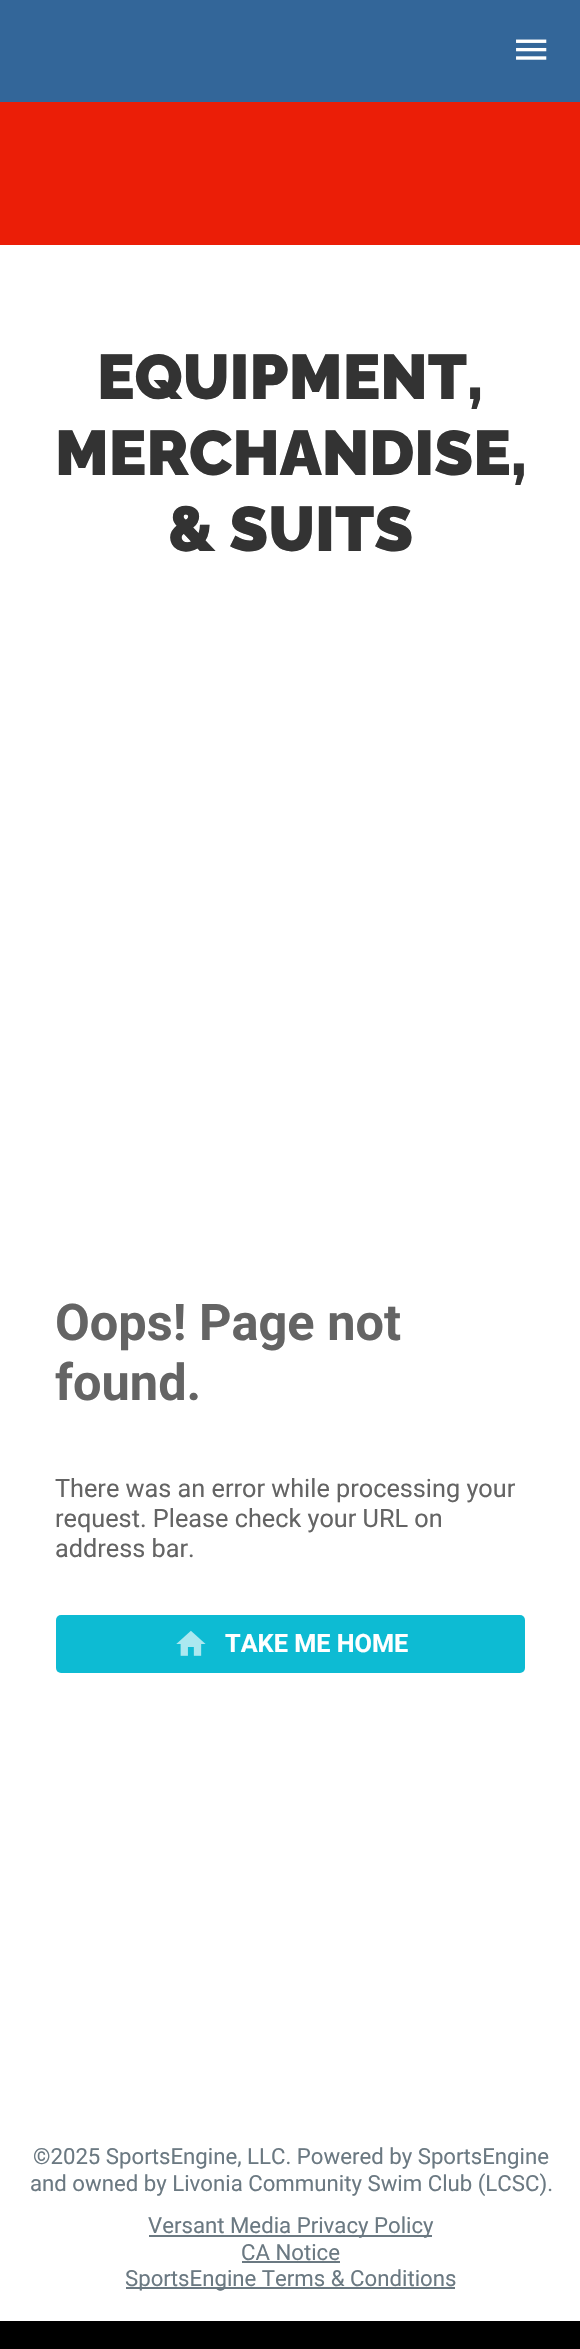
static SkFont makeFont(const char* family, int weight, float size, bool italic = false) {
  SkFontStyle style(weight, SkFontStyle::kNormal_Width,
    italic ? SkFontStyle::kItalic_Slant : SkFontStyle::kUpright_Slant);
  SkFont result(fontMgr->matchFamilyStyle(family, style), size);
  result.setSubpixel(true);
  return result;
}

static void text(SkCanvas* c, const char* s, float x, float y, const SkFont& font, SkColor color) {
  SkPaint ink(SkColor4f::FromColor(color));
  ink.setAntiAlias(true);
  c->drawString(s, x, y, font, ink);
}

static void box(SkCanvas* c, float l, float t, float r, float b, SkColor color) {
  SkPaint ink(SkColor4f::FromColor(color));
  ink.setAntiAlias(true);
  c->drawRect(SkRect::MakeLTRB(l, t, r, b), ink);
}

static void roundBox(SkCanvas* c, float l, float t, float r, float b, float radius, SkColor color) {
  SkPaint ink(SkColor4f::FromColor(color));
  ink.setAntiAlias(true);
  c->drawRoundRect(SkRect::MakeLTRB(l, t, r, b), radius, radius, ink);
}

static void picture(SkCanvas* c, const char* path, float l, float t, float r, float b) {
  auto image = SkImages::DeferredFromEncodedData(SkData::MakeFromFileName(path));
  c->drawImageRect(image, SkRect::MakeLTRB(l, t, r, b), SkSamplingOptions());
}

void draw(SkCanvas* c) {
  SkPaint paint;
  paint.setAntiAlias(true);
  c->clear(0xff000000);
  box(c, 0, 0, 580, 102, 0xff336699);
  picture(c, "img_01.png", 516, 39, 547, 60);
  box(c, 0, 245, 580, 2321, 0xffffffff);
  box(c, 0, 102, 580, 245, 0xffeb1e07);
  SkFont face1 = makeFont("Raleway", 900, 63);
  text(c, "EQUIPMENT,", 97, 399, face1, 0xff333333);
  text(c, "MERCHANDISE,", 55, 475, face1, 0xff333333);
  text(c, "& SUITS", 168, 551, face1, 0xff333333);
  SkFont face2 = makeFont("Roboto", 700, 50.5f);
  text(c, "Oops! Page not", 55, 1340, face2, 0xff646464);
  text(c, "found.", 55, 1400, face2, 0xff646464);
  SkFont face3 = makeFont("Roboto", 400, 25.25f);
  text(c, "There was an error while processing your", 55, 1497, face3, 0xff646464);
  text(c, "request. Please check your URL on", 55, 1527, face3, 0xff646464);
  text(c, "address bar.", 55, 1557, face3, 0xff646464);
  roundBox(c, 56, 1615, 525, 1673, 5, 0xff0dbbd3);
  picture(c, "img_02.png", 176, 1630, 206, 1656);
  SkFont face4 = makeFont("Roboto", 700, 25.25f);
  text(c, "TAKE ME HOME", 225, 1652, face4, 0xffffffff);
  SkFont face5 = makeFont("Roboto", 400, 22.2f);
  text(c, "©2025 SportsEngine, LLC. Powered by SportsEngine", 33, 2164, face5, 0xff6b7982);
  text(c, "and owned by Livonia Community Swim Club (LCSC).", 30, 2191, face5, 0xff6b7982);
  box(c, 149, 2235, 432, 2237, 0xff6b7982);
  text(c, "Versant Media Privacy Policy", 148, 2233, face5, 0xff6b7982);
  text(c, "CA Notice", 241, 2260, face5, 0xff6b7982);
  box(c, 242, 2261, 340, 2263, 0xff6b7982);
  box(c, 126, 2287, 455, 2289, 0xff6b7982);
  text(c, "SportsEngine Terms & Conditions", 125, 2286, face5, 0xff6b7982);
}
